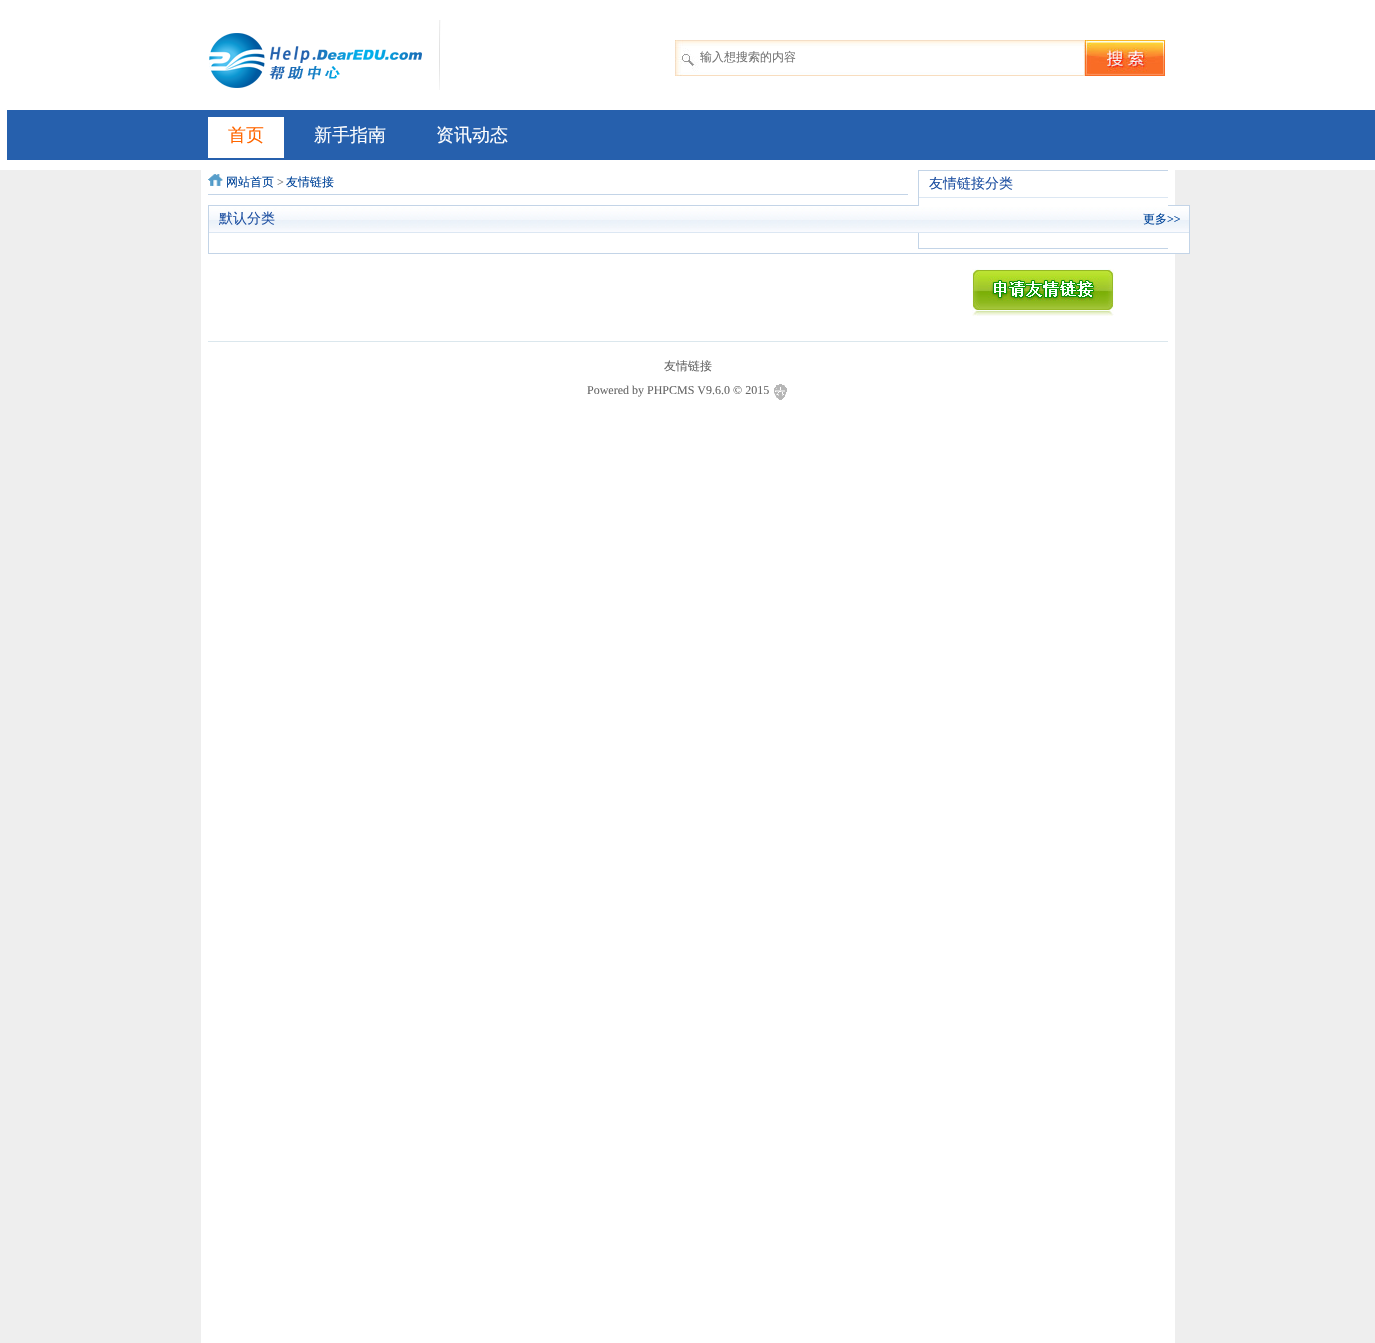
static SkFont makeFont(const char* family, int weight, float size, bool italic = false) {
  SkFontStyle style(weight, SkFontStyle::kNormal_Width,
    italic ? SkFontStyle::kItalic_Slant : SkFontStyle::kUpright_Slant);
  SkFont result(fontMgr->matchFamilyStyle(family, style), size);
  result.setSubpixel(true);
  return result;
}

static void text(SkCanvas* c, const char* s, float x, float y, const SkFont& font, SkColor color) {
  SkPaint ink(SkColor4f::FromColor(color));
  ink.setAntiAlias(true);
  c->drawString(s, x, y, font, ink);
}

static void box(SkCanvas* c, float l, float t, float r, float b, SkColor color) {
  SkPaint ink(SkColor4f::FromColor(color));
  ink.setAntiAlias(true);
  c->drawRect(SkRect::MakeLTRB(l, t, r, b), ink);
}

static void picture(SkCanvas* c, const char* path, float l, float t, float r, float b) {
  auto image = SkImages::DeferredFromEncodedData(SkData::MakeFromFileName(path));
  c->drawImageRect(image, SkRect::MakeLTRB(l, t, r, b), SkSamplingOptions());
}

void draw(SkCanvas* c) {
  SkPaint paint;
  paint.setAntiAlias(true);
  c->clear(0xffeeeeee);
  box(c, 201, 170, 1175, 1343, 0xffffffff);
  box(c, 0, 0, 1375, 170, 0xffffffff);
  picture(c, "img_01.png", 439, 20, 441, 90);
  picture(c, "img_02.png", 209, 33, 422, 88);
  picture(c, "img_03.png", 675, 40, 1166, 76);
  SkFont face1 = makeFont("WenQuanYi Zen Hei", 500, 12);
  text(c, "输入想搜索的内容", 700, 61, face1, 0xff757575);
  box(c, 7, 110, 1375, 160, 0xff2660ad);
  box(c, 208, 117, 284, 158, 0xffffffff);
  SkFont face2 = makeFont("WenQuanYi Zen Hei", 500, 18);
  text(c, "首页", 228, 141, face2, 0xffff6600);
  text(c, "新手指南", 314, 141, face2, 0xffffffff);
  text(c, "资讯动态", 436, 141, face2, 0xffffffff);
  picture(c, "img_04.png", 208, 174, 223, 186);
  box(c, 208, 194, 908, 195, 0xffc3d4e7);
  text(c, "网站首页", 226, 186, face1, 0xff004499);
  SkFont face3 = makeFont("Liberation Serif", 400, 12);
  text(c, ">", 277, 186, face3, 0xff7e7e7e);
  text(c, "友情链接", 286, 186, face1, 0xff004499);
  box(c, 1175, 233, 1189, 253, 0xffffffff);
  paint.setStyle(SkPaint::kStroke_Style);
  paint.setStrokeWidth(1);
  paint.setColor(0xffc3d4e7);
  c->drawRect(SkRect::MakeLTRB(208.5f, 205.5f, 1189.5f, 253.5f), paint);
  box(c, 919, 205, 1168, 206, 0xffffffff);
  c->save();
  c->clipRect(SkRect::MakeLTRB(918, 170, 1168, 326));
  c->drawRect(SkRect::MakeLTRB(918.5f, 170.5f, 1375.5f, 248.5f), paint);
  c->restore();
  picture(c, "img_05.png", 209, 206, 1189, 232);
  box(c, 209, 232, 1189, 233, 0xffdce7f3);
  SkFont face4 = makeFont("WenQuanYi Zen Hei", 500, 14);
  text(c, "默认分类", 219, 223, face4, 0xff1e50a2);
  text(c, "更多", 1143, 223, face1, 0xff004499);
  text(c, ">>", 1167, 223, face3, 0xff004499);
  box(c, 919, 197, 1168, 198, 0xffdce7f3);
  text(c, "友情链接分类", 929, 188, face4, 0xff1e50a2);
  picture(c, "img_06.png", 972, 269, 1114, 316);
  box(c, 208, 341, 1168, 342, 0xffdbe7ed);
  text(c, "友情链接", 664, 370, face1, 0xff666666);
  text(c, "Powered by PHPCMS V9.6.0 © 2015", 587, 394, face3, 0xff666666);
  picture(c, "img_07.png", 774, 384, 787, 400);
}
